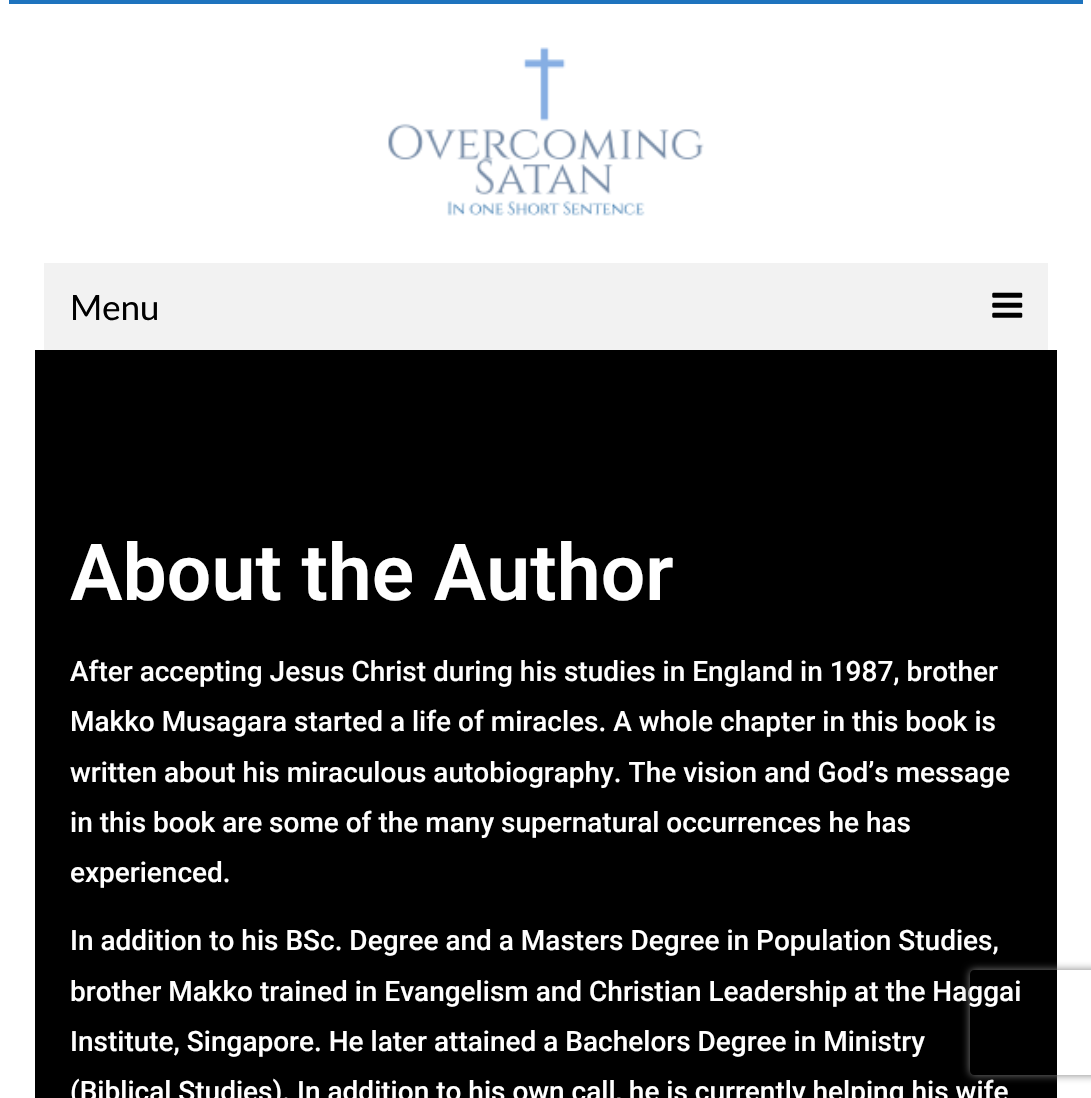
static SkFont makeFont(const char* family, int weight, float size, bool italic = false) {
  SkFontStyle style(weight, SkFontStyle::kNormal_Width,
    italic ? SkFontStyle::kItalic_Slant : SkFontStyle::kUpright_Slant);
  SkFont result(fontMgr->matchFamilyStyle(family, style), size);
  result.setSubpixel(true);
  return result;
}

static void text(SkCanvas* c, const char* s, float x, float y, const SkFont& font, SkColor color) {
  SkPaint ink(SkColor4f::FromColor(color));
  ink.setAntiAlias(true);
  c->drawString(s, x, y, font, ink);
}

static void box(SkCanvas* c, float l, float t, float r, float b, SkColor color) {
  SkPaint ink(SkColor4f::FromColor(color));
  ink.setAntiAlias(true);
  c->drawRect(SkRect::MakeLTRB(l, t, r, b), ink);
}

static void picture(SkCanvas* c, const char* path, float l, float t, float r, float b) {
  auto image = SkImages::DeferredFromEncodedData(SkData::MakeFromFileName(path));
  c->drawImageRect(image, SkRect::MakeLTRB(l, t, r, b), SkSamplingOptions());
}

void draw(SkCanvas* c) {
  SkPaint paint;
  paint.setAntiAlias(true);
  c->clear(0xffffffff);
  box(c, 9, 0, 1083, 4, 0xff1e73be);
  picture(c, "img_01.png", 388, 47, 704, 216);
  box(c, 44, 263, 1048, 350, 0xfff2f2f2);
  SkFont face1 = makeFont("Lato", 400, 35);
  text(c, "Menu", 70, 320, face1, 0xff000000);
  picture(c, "img_02.png", 992, 292, 1023, 318);
  box(c, 35, 350, 1057, 1098, 0xff000000);
  SkFont face2 = makeFont("Roboto", 600, 78.75f);
  text(c, "About the Author", 70, 600, face2, 0xffffffff);
  SkFont face3 = makeFont("Roboto", 500, 28);
  text(c, "After accepting Jesus Christ during his studies in England in 1987, brother", 70, 681, face3, 0xffffffff);
  text(c, "Makko Musagara started a life of miracles. A whole chapter in this book is", 70, 731, face3, 0xffffffff);
  text(c, "written about his miraculous autobiography. The vision and God’s message", 70, 782, face3, 0xffffffff);
  text(c, "in this book are some of the many supernatural occurrences he has", 70, 832, face3, 0xffffffff);
  text(c, "experienced.", 70, 882, face3, 0xffffffff);
  text(c, "In addition to his BSc. Degree and a Masters Degree in Population Studies,", 70, 950, face3, 0xffffffff);
  text(c, "brother Makko trained in Evangelism and Christian Leadership at the Haggai", 70, 1001, face3, 0xffffffff);
  text(c, "Institute, Singapore. He later attained a Bachelors Degree in Ministry", 70, 1051, face3, 0xffffffff);
  text(c, "(Biblical Studies). In addition to his own call, he is currently helping his wife", 70, 1101, face3, 0xffffffff);
  c->save();
  c->clipPath(SkPathBuilder(SkPathFillType::kEvenOdd).moveTo(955, 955).lineTo(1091, 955).lineTo(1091, 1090).lineTo(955, 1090).close().moveTo(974, 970).lineTo(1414, 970).cubicTo(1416, 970, 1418, 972, 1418, 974).lineTo(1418, 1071).cubicTo(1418, 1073, 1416, 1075, 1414, 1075).lineTo(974, 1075).cubicTo(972, 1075, 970, 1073, 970, 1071).lineTo(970, 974).cubicTo(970, 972, 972, 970, 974, 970).close().detach(), true);
  paint.setColor(0xff808080);
  paint.setMaskFilter(SkMaskFilter::MakeBlur(kNormal_SkBlurStyle, 4.5f));
  c->drawRoundRect(SkRect::MakeLTRB(970, 970, 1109, 1075), 4, 4, paint);
  paint.setMaskFilter(nullptr);
  c->restore();
}
